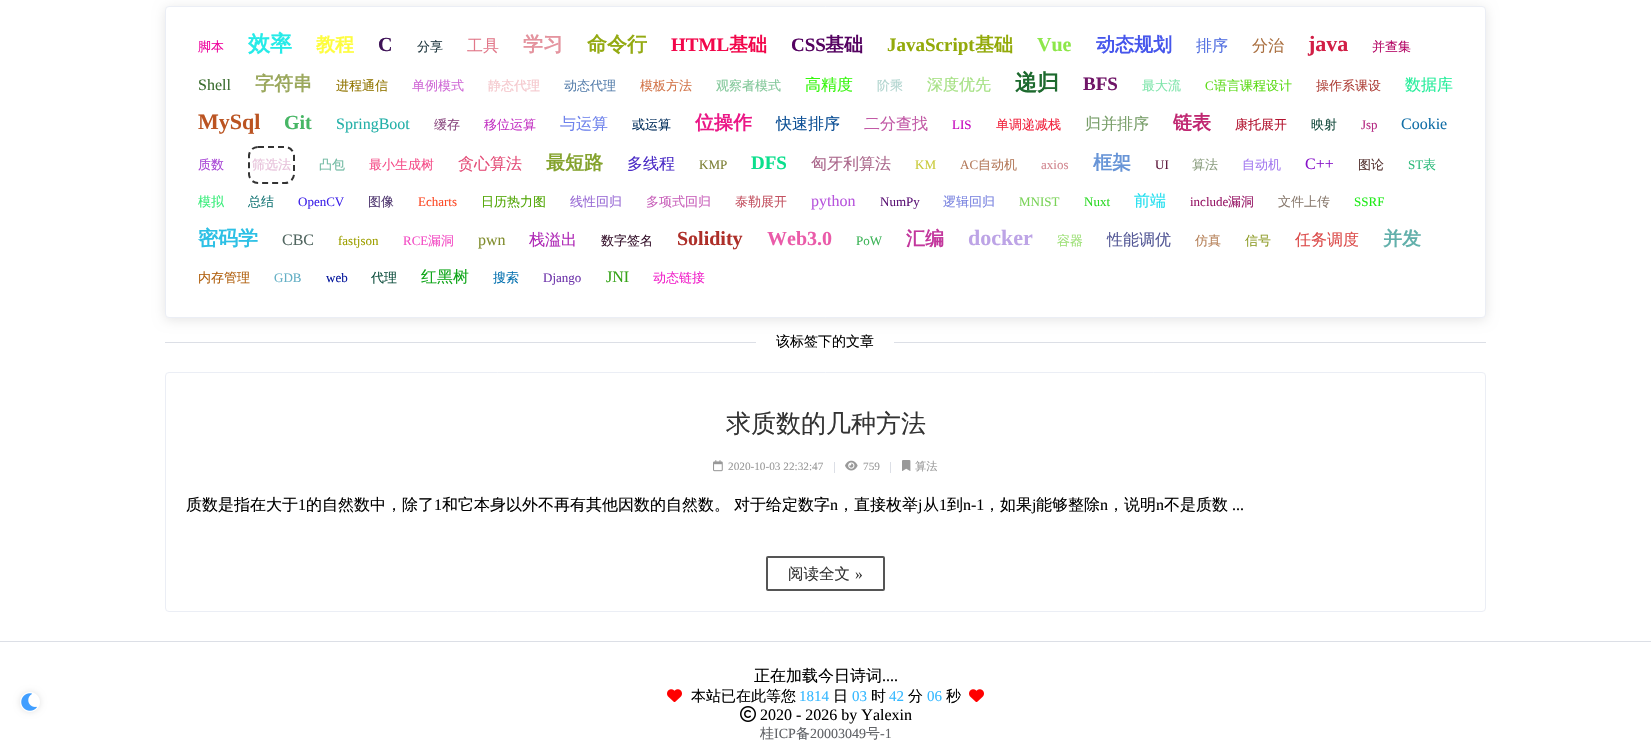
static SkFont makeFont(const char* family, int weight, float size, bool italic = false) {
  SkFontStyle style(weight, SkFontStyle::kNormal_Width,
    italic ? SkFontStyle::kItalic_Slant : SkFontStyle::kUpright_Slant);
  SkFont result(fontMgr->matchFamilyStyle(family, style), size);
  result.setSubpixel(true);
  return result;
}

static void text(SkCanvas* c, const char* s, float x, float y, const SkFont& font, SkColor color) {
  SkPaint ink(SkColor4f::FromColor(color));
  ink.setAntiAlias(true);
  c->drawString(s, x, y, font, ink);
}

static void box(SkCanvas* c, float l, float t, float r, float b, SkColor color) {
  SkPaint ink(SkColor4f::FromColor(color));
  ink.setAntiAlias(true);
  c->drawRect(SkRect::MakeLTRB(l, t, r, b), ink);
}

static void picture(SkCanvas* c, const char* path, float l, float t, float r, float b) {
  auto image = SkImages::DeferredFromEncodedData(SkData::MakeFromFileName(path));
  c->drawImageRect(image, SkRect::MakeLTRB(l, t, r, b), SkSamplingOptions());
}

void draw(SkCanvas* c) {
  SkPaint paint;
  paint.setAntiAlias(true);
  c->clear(0xffffffff);
  c->save();
  c->clipPath(SkPathBuilder(SkPathFillType::kEvenOdd).moveTo(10, 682).lineTo(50, 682).lineTo(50, 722).lineTo(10, 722).close().moveTo(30, 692).cubicTo(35.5f, 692, 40, 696.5f, 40, 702).cubicTo(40, 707.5f, 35.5f, 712, 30, 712).cubicTo(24.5f, 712, 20, 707.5f, 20, 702).cubicTo(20, 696.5f, 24.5f, 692, 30, 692).close().detach(), true);
  paint.setColor(0x1f000000);
  paint.setMaskFilter(SkMaskFilter::MakeBlur(kNormal_SkBlurStyle, 3));
  c->drawRoundRect(SkRect::MakeLTRB(20, 692, 40, 712), 10, 10, paint);
  paint.setMaskFilter(nullptr);
  c->restore();
  picture(c, "img_01.png", 21, 693, 37, 711);
  paint.setColor(0x1a000000);
  paint.setMaskFilter(SkMaskFilter::MakeBlur(kNormal_SkBlurStyle, 6));
  c->drawRoundRect(SkRect::MakeLTRB(165, 8, 1486, 320), 4, 4, paint);
  paint.setMaskFilter(nullptr);
  paint.setColor(0xffffffff);
  c->drawRoundRect(SkRect::MakeLTRB(165.5f, 6.5f, 1485.5f, 317.5f), 3.5f, 3.5f, paint);
  paint.setStyle(SkPaint::kStroke_Style);
  paint.setStrokeWidth(1);
  paint.setColor(0xffebeef5);
  c->drawRoundRect(SkRect::MakeLTRB(165.5f, 6.5f, 1485.5f, 317.5f), 3.5f, 3.5f, paint);
  SkFont face1 = makeFont("WenQuanYi Zen Hei", 500, 13);
  text(c, "脚本", 198, 51, face1, 0xffef029d);
  SkFont face2 = makeFont("WenQuanYi Zen Hei", 700, 22);
  text(c, "效率", 248, 51, face2, 0xff25ebe8);
  SkFont face3 = makeFont("WenQuanYi Zen Hei", 700, 19);
  text(c, "教程", 316, 51, face3, 0xfffefd3d);
  SkFont face4 = makeFont("Liberation Serif", 700, 20);
  text(c, "C", 378, 51, face4, 0xff3e1257);
  text(c, "分享", 417, 51, face1, 0xff243b43);
  SkFont face5 = makeFont("WenQuanYi Zen Hei", 500, 16);
  text(c, "工具", 467, 51, face5, 0xffe2788a);
  SkFont face6 = makeFont("WenQuanYi Zen Hei", 700, 20);
  text(c, "学习", 523, 51, face6, 0xffe4939e);
  text(c, "命令行", 587, 51, face6, 0xff94aa12);
  SkFont face7 = makeFont("Liberation Serif", 700, 19);
  text(c, "HTML", 671, 51, face7, 0xfff2074b);
  text(c, "基础", 729, 51, face3, 0xfff2074b);
  text(c, "CSS", 791, 51, face7, 0xff550361);
  text(c, "基础", 825, 51, face3, 0xff550361);
  text(c, "JavaScript", 887, 51, face7, 0xff93aa0a);
  text(c, "基础", 975, 51, face3, 0xff93aa0a);
  text(c, "Vue", 1037, 51, face4, 0xff8de749);
  text(c, "动态规划", 1096, 51, face3, 0xff4656ec);
  text(c, "排序", 1196, 51, face5, 0xff5370e1);
  text(c, "分治", 1252, 51, face5, 0xffab7142);
  SkFont face8 = makeFont("Liberation Serif", 700, 22);
  text(c, "java", 1308, 51, face8, 0xffd21f46);
  text(c, "并查集", 1372, 51, face1, 0xffb50866);
  SkFont face9 = makeFont("Liberation Serif", 400, 16);
  text(c, "Shell", 198, 90, face9, 0xff3c6e30);
  text(c, "字符串", 255, 90, face3, 0xff9ba85d);
  text(c, "进程通信", 336, 90, face1, 0xff917500);
  text(c, "单例模式", 412, 90, face1, 0xffcf67d6);
  text(c, "静态代理", 488, 90, face1, 0xfff5c7cc);
  text(c, "动态代理", 564, 90, face1, 0xff577fac);
  text(c, "模板方法", 640, 90, face1, 0xffd27449);
  text(c, "观察者模式", 716, 90, face1, 0xff83c89a);
  text(c, "高精度", 805, 90, face5, 0xff36f70d);
  text(c, "阶乘", 877, 90, face1, 0xffafd4ce);
  text(c, "深度优先", 927, 90, face5, 0xffa6e184);
  text(c, "递归", 1015, 90, face2, 0xff1d6a2e);
  text(c, "BFS", 1083, 90, face7, 0xff701668);
  text(c, "最大流", 1142, 90, face1, 0xff7fe5ab);
  SkFont face10 = makeFont("Liberation Serif", 400, 13);
  text(c, "C", 1205, 90, face10, 0xff5cdb17);
  text(c, "语言课程设计", 1214, 90, face1, 0xff5cdb17);
  text(c, "操作系课设", 1316, 90, face1, 0xffaf423a);
  text(c, "数据库", 1405, 90, face5, 0xff28ee9c);
  text(c, "MySql", 198, 129, face8, 0xffbb5422);
  text(c, "Git", 284, 129, face4, 0xff47b665);
  text(c, "SpringBoot", 336, 129, face9, 0xff23b0a8);
  text(c, "缓存", 434, 129, face1, 0xff8a497f);
  text(c, "移位运算", 484, 129, face1, 0xffc334c3);
  text(c, "与运算", 560, 129, face5, 0xff6e82ec);
  text(c, "或运算", 632, 129, face1, 0xff012d5b);
  text(c, "位操作", 695, 129, face3, 0xffeb1786);
  text(c, "快速排序", 776, 129, face5, 0xff0c4f95);
  text(c, "二分查找", 864, 129, face5, 0xffc25aa6);
  text(c, "LIS", 952, 129, face10, 0xffc404bc);
  text(c, "单调递减栈", 996, 129, face1, 0xfff1243e);
  text(c, "归并排序", 1085, 129, face5, 0xff789e69);
  text(c, "链表", 1173, 129, face3, 0xffc02771);
  text(c, "康托展开", 1235, 129, face1, 0xffb31430);
  text(c, "映射", 1311, 129, face1, 0xff194e41);
  text(c, "Jsp", 1361, 129, face10, 0xffb52b84);
  text(c, "Cookie", 1401, 129, face9, 0xff126fa7);
  text(c, "质数", 198, 169, face1, 0xffa744d5);
  paint.setStrokeWidth(2);
  paint.setColor(0xff333333);
  paint.setPathEffect(SkDashPathEffect::Make({{6, 4}}, 0));
  c->drawPath(SkPathBuilder().moveTo(258, 147).lineTo(285, 147).cubicTo(290, 147, 294, 151, 294, 156).lineTo(294, 174).cubicTo(294, 179, 290, 183, 285, 183).lineTo(258, 183).cubicTo(253, 183, 249, 179, 249, 174).lineTo(249, 156).cubicTo(249, 151, 253, 147, 258, 147).close().detach(), paint);
  paint.setPathEffect(nullptr);
  text(c, "筛选法", 252, 169, face1, 0xffe7c1da);
  text(c, "凸包", 319, 169, face1, 0xff6fb9a1);
  text(c, "最小生成树", 369, 169, face1, 0xfff54b87);
  text(c, "贪心算法", 458, 169, face5, 0xffe44c77);
  text(c, "最短路", 546, 169, face3, 0xff85a32e);
  text(c, "多线程", 627, 169, face5, 0xff4d2fc7);
  text(c, "KMP", 699, 169, face10, 0xff7e8036);
  text(c, "DFS", 751, 169, face7, 0xff0bdf8d);
  text(c, "匈牙利算法", 811, 169, face5, 0xffab688c);
  text(c, "KM", 915, 169, face10, 0xffcacb3c);
  text(c, "AC", 960, 169, face10, 0xffb4795a);
  text(c, "自动机", 978, 169, face1, 0xffb4795a);
  text(c, "axios", 1041, 169, face10, 0xffd28891);
  text(c, "框架", 1093, 169, face3, 0xff6895d7);
  text(c, "UI", 1155, 169, face10, 0xff5d183b);
  text(c, "算法", 1192, 169, face1, 0xff8c9e80);
  text(c, "自动机", 1242, 169, face1, 0xffa379f0);
  text(c, "C++", 1305, 169, face9, 0xff8712c9);
  text(c, "图论", 1358, 169, face1, 0xff583634);
  text(c, "ST", 1408, 169, face10, 0xff2ebb7c);
  text(c, "表", 1423, 169, face1, 0xff2ebb7c);
  text(c, "模拟", 198, 206, face1, 0xff3aee7b);
  text(c, "总结", 248, 206, face1, 0xff187777);
  text(c, "OpenCV", 298, 206, face10, 0xff4025e9);
  text(c, "图像", 368, 206, face1, 0xff513971);
  text(c, "Echarts", 418, 206, face10, 0xfffc4a26);
  text(c, "日历热力图", 481, 206, face1, 0xff50a603);
  text(c, "线性回归", 570, 206, face1, 0xff986ad5);
  text(c, "多项式回归", 646, 206, face1, 0xffc85fba);
  text(c, "泰勒展开", 735, 206, face1, 0xffc35261);
  text(c, "python", 811, 206, face9, 0xffb755dd);
  text(c, "NumPy", 880, 206, face10, 0xff5e1778);
  text(c, "逻辑回归", 943, 206, face1, 0xff7983e0);
  text(c, "MNIST", 1019, 206, face10, 0xff7ad358);
  text(c, "Nuxt", 1084, 206, face10, 0xff2eda28);
  text(c, "前端", 1134, 206, face5, 0xff22dfef);
  text(c, "include", 1190, 206, face10, 0xff991c69);
  text(c, "漏洞", 1228, 206, face1, 0xff991c69);
  text(c, "文件上传", 1278, 206, face1, 0xff8a7b6f);
  text(c, "SSRF", 1354, 206, face10, 0xff1eeb17);
  text(c, "密码学", 198, 245, face6, 0xff2cc0e5);
  text(c, "CBC", 282, 245, face9, 0xff526761);
  text(c, "fastjson", 338, 245, face10, 0xff9e9f00);
  text(c, "RCE", 403, 245, face10, 0xfff34cc4);
  text(c, "漏洞", 428, 245, face1, 0xfff34cc4);
  text(c, "pwn", 478, 245, face9, 0xff818d2e);
  text(c, "栈溢出", 529, 245, face5, 0xffaf28b6);
  text(c, "数字签名", 601, 245, face1, 0xff36132c);
  text(c, "Solidity", 677, 245, face4, 0xffae2f29);
  text(c, "Web3.0", 767, 245, face4, 0xffea5ba9);
  text(c, "PoW", 856, 245, face10, 0xff3db458);
  text(c, "汇编", 906, 245, face3, 0xffc3379d);
  text(c, "docker", 968, 245, face8, 0xffbda4e6);
  text(c, "容器", 1057, 245, face1, 0xff9de076);
  text(c, "性能调优", 1107, 245, face5, 0xff545896);
  text(c, "仿真", 1195, 245, face1, 0xffb68159);
  text(c, "信号", 1245, 245, face1, 0xff8e9c27);
  text(c, "任务调度", 1295, 245, face5, 0xffdc4b4a);
  text(c, "并发", 1383, 245, face3, 0xff62b0ab);
  text(c, "内存管理", 198, 282, face1, 0xffb1600e);
  text(c, "GDB", 274, 282, face10, 0xff63afc5);
  text(c, "web", 326, 282, face10, 0xff06189d);
  text(c, "代理", 371, 282, face1, 0xff10503f);
  text(c, "红黑树", 421, 282, face5, 0xff0ea618);
  text(c, "搜索", 493, 282, face1, 0xff0471b0);
  text(c, "Django", 543, 282, face10, 0xff6f36ab);
  text(c, "JNI", 606, 282, face9, 0xff37a419);
  text(c, "动态链接", 653, 282, face1, 0xfff122ca);
  box(c, 165, 342, 1486, 343, 0xffdcdfe6);
  box(c, 756, 342, 894, 343, 0xffffffff);
  SkFont face11 = makeFont("WenQuanYi Zen Hei", 500, 14);
  text(c, "该标签下的文章", 776, 346, face11, 0xff000000);
  paint.setStrokeWidth(1);
  paint.setColor(0xffebeef5);
  c->drawRoundRect(SkRect::MakeLTRB(165.5f, 372.5f, 1485.5f, 611.5f), 3.5f, 3.5f, paint);
  SkFont face12 = makeFont("WenQuanYi Zen Hei", 500, 25);
  text(c, "求质数的几种方法", 726, 432, face12, 0xff333333);
  picture(c, "img_02.png", 713, 460, 723, 472);
  SkFont face13 = makeFont("Liberation Serif", 400, 11.25f);
  text(c, "2020-10-03 22:32:47", 728, 470, face13, 0xff999999);
  box(c, 834, 462, 835, 473, 0xffdcdfe6);
  picture(c, "img_03.png", 845, 460, 858, 471);
  text(c, "759", 863, 470, face13, 0xff999999);
  box(c, 890, 462, 891, 473, 0xffdcdfe6);
  picture(c, "img_04.png", 902, 460, 911, 471);
  SkFont face14 = makeFont("WenQuanYi Zen Hei", 500, 11.25f);
  text(c, "算法", 915, 470, face14, 0xff999999);
  text(c, "质数是指在大于", 186, 510, face5, 0xff000000);
  text(c, "1", 298, 510, face9, 0xff000000);
  text(c, "的自然数中，除了", 306, 510, face5, 0xff000000);
  text(c, "1", 434, 510, face9, 0xff000000);
  text(c, "和它本身以外不再有其他因数的自然数。", 442, 510, face5, 0xff000000);
  text(c, "对于给定数字", 734, 510, face5, 0xff000000);
  text(c, "n", 830, 510, face9, 0xff000000);
  text(c, "，直接枚举", 838, 510, face5, 0xff000000);
  text(c, "j", 918, 510, face9, 0xff000000);
  text(c, "从", 923, 510, face5, 0xff000000);
  text(c, "1", 939, 510, face9, 0xff000000);
  text(c, "到", 947, 510, face5, 0xff000000);
  text(c, "n-1", 963, 510, face9, 0xff000000);
  text(c, "，如果", 984, 510, face5, 0xff000000);
  text(c, "j", 1032, 510, face9, 0xff000000);
  text(c, "能够整除", 1036, 510, face5, 0xff000000);
  text(c, "n", 1100, 510, face9, 0xff000000);
  text(c, "，说明", 1108, 510, face5, 0xff000000);
  text(c, "n", 1156, 510, face9, 0xff000000);
  text(c, "不是质数", 1164, 510, face5, 0xff000000);
  text(c, "...", 1232, 510, face9, 0xff000000);
  paint.setStrokeWidth(2);
  paint.setColor(0xff555555);
  c->drawRoundRect(SkRect::MakeLTRB(767, 557, 884, 590), 1, 1, paint);
  SkFont face15 = makeFont("WenQuanYi Zen Hei", 500, 15.5f);
  text(c, "阅读全文", 788, 579, face15, 0xff333333);
  SkFont face16 = makeFont("Liberation Serif", 400, 15.5f);
  text(c, "»", 855, 579, face16, 0xff333333);
  box(c, 0, 641, 1651, 642, 0xffdcdfe6);
  text(c, "正在加载今日诗词", 754, 681, face5, 0xff000000);
  text(c, "....", 882, 681, face9, 0xff000000);
  picture(c, "img_05.png", 667, 689, 682, 702);
  SkFont face17 = makeFont("WenQuanYi Zen Hei", 500, 15);
  text(c, "本站已在此等您", 691, 701, face17, 0xff000000);
  SkFont face18 = makeFont("Liberation Serif", 400, 15);
  text(c, "1814", 799, 701, face18, 0xff35b8ff);
  text(c, "日", 833, 701, face17, 0xff000000);
  text(c, "03", 852, 701, face18, 0xff35b8ff);
  text(c, "时", 871, 701, face17, 0xff000000);
  text(c, "42", 889, 701, face18, 0xff35b8ff);
  text(c, "分", 908, 701, face17, 0xff000000);
  text(c, "06", 927, 701, face18, 0xff35b8ff);
  text(c, "秒", 946, 701, face17, 0xff000000);
  picture(c, "img_05.png", 969, 689, 984, 702);
  picture(c, "img_06.png", 740, 706, 756, 722);
  text(c, "2020 - 2026 by Yalexin", 760, 720, face9, 0xff000000);
  text(c, "桂", 760, 738, face11, 0xff606266);
  SkFont face19 = makeFont("Liberation Serif", 400, 14);
  text(c, "ICP", 774, 738, face19, 0xff606266);
  text(c, "备", 796, 738, face11, 0xff606266);
  text(c, "20003049", 810, 738, face19, 0xff606266);
  text(c, "号", 866, 738, face11, 0xff606266);
  text(c, "-1", 880, 738, face19, 0xff606266);
}
